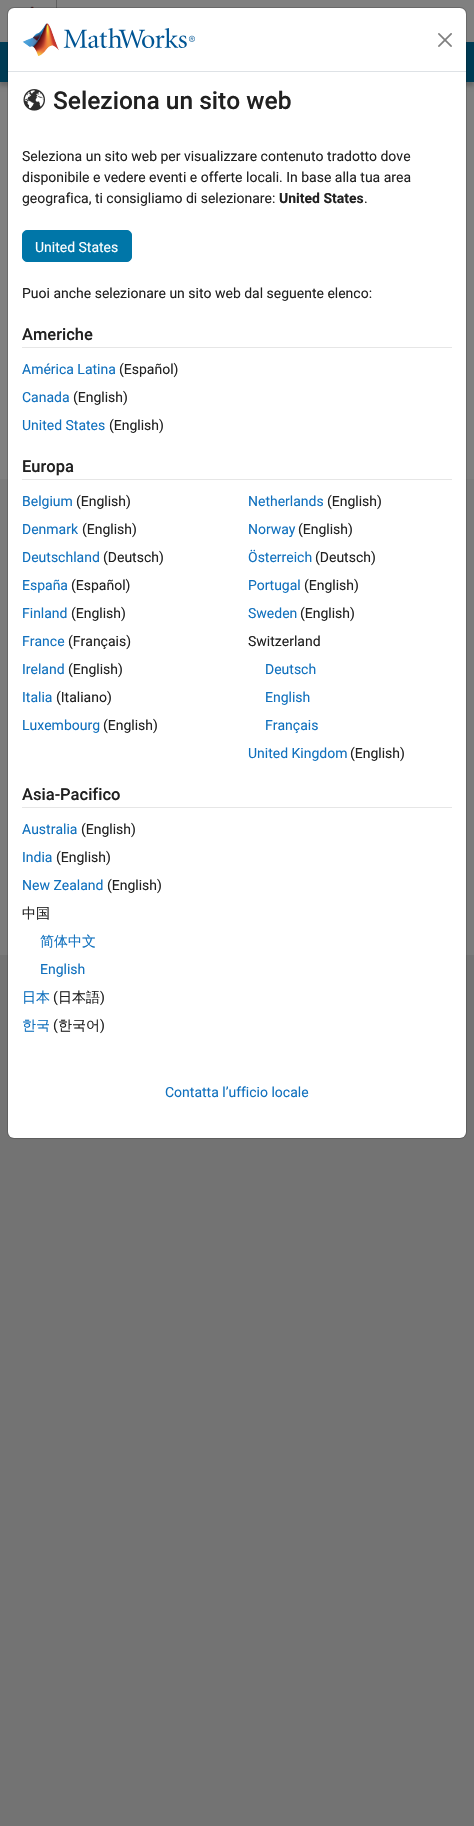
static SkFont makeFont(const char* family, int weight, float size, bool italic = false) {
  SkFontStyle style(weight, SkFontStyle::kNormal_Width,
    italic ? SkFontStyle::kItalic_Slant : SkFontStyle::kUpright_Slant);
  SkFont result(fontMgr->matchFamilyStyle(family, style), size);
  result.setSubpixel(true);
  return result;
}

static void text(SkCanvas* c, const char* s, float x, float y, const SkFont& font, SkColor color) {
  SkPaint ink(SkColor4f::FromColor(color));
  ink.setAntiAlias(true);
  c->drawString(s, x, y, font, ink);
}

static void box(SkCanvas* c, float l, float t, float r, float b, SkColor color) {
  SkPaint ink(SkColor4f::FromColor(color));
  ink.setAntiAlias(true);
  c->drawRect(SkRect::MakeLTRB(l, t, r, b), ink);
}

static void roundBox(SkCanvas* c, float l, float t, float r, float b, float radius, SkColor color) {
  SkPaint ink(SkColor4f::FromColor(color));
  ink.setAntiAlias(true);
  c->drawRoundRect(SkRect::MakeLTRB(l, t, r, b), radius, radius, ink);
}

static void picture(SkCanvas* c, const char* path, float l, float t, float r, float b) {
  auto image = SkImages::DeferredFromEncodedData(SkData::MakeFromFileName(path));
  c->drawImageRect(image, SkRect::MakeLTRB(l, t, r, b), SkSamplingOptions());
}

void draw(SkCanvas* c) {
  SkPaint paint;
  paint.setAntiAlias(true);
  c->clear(0xff737373);
  box(c, 0, 0, 474, 42, 0xff808080);
  box(c, 56, 0, 57, 8, 0xff606060);
  picture(c, "img_01.png", 30, 6, 34, 8);
  box(c, 0, 82, 474, 479, 0xff808080);
  paint.setColor(0x33000000);
  paint.setMaskFilter(SkMaskFilter::MakeBlur(kNormal_SkBlurStyle, 2));
  c->drawRect(SkRect::MakeLTRB(0, 46, 474, 86), paint);
  paint.setMaskFilter(nullptr);
  box(c, 0, 42, 8, 82, 0xff003b54);
  box(c, 466, 42, 474, 82, 0xff003b54);
  box(c, 0, 479, 474, 955, 0xff7b7b7b);
  roundBox(c, 8, 8, 466, 1138, 6, 0xffffffff);
  paint.setStyle(SkPaint::kStroke_Style);
  paint.setStrokeWidth(1);
  paint.setColor(0x2e000000);
  c->drawRoundRect(SkRect::MakeLTRB(7.5f, 7.5f, 466.5f, 1138.5f), 6.5f, 6.5f, paint);
  box(c, 8, 71, 466, 72, 0xffdee2e6);
  picture(c, "img_02.png", 22, 23, 195, 56);
  picture(c, "img_03.png", 438, 33, 452, 47);
  picture(c, "img_04.png", 23, 89, 45, 111);
  SkFont face1 = makeFont("Roboto", 500, 24.5f);
  text(c, "Seleziona un sito web", 53, 109, face1, 0xff212121);
  SkFont face2 = makeFont("Roboto", 400, 14);
  text(c, "Seleziona un sito web per visualizzare contenuto tradotto dove", 22, 161, face2, 0xff212121);
  text(c, "disponibile e vedere eventi e offerte locali. In base alla tua area", 22, 182, face2, 0xff212121);
  text(c, "geografica, ti consigliamo di selezionare:", 22, 203, face2, 0xff212121);
  SkFont face3 = makeFont("Roboto", 700, 14);
  text(c, "United States", 279, 203, face3, 0xff212121);
  text(c, ".", 364, 203, face2, 0xff212121);
  paint.setStyle(SkPaint::kFill_Style);
  paint.setColor(0xff0076a8);
  c->drawRoundRect(SkRect::MakeLTRB(22.5f, 230.5f, 131.5f, 261.5f), 4.5f, 4.5f, paint);
  paint.setStyle(SkPaint::kStroke_Style);
  c->drawRoundRect(SkRect::MakeLTRB(22.5f, 230.5f, 131.5f, 261.5f), 4.5f, 4.5f, paint);
  text(c, "United States", 35, 252, face2, 0xffffffff);
  text(c, "Puoi anche selezionare un sito web dal seguente elenco:", 22, 298, face2, 0xff212121);
  box(c, 22, 347, 452, 348, 0xffe6e6e6);
  SkFont face4 = makeFont("Roboto", 500, 16.5f);
  text(c, "Americhe", 22, 340, face4, 0xff212121);
  text(c, "América Latina", 22, 374, face2, 0xff1171be);
  text(c, "(Español)", 119, 374, face2, 0xff212121);
  text(c, "Canada", 22, 402, face2, 0xff1171be);
  text(c, "(English)", 73, 402, face2, 0xff212121);
  text(c, "United States", 22, 430, face2, 0xff1171be);
  text(c, "(English)", 109, 430, face2, 0xff212121);
  box(c, 22, 479, 452, 480, 0xffe6e6e6);
  text(c, "Europa", 22, 472, face4, 0xff212121);
  text(c, "Belgium", 22, 506, face2, 0xff1171be);
  text(c, "(English)", 76, 506, face2, 0xff212121);
  text(c, "Denmark", 22, 534, face2, 0xff1171be);
  text(c, "(English)", 82, 534, face2, 0xff212121);
  text(c, "Deutschland", 22, 562, face2, 0xff1171be);
  text(c, "(Deutsch)", 103, 562, face2, 0xff212121);
  text(c, "España", 22, 590, face2, 0xff1171be);
  text(c, "(Español)", 71, 590, face2, 0xff212121);
  text(c, "Finland", 22, 618, face2, 0xff1171be);
  text(c, "(English)", 71, 618, face2, 0xff212121);
  text(c, "France", 22, 646, face2, 0xff1171be);
  text(c, "(Français)", 68, 646, face2, 0xff212121);
  text(c, "Ireland", 22, 674, face2, 0xff1171be);
  text(c, "(English)", 68, 674, face2, 0xff212121);
  text(c, "Italia", 22, 702, face2, 0xff1171be);
  text(c, "(Italiano)", 56, 702, face2, 0xff212121);
  text(c, "Luxembourg", 22, 730, face2, 0xff1171be);
  text(c, "(English)", 103, 730, face2, 0xff212121);
  text(c, "Netherlands", 248, 506, face2, 0xff1171be);
  text(c, "(English)", 327, 506, face2, 0xff212121);
  text(c, "Norway", 248, 534, face2, 0xff1171be);
  text(c, "(English)", 298, 534, face2, 0xff212121);
  text(c, "Österreich", 248, 562, face2, 0xff1171be);
  text(c, "(Deutsch)", 315, 562, face2, 0xff212121);
  text(c, "Portugal", 248, 590, face2, 0xff1171be);
  text(c, "(English)", 304, 590, face2, 0xff212121);
  text(c, "Sweden", 248, 618, face2, 0xff1171be);
  text(c, "(English)", 300, 618, face2, 0xff212121);
  text(c, "Switzerland", 248, 646, face2, 0xff212121);
  text(c, "Deutsch", 265, 674, face2, 0xff1171be);
  text(c, "English", 265, 702, face2, 0xff1171be);
  text(c, "Français", 265, 730, face2, 0xff1171be);
  text(c, "United Kingdom", 248, 758, face2, 0xff1171be);
  text(c, "(English)", 350, 758, face2, 0xff212121);
  box(c, 22, 807, 452, 808, 0xffe6e6e6);
  text(c, "Asia-Pacifico", 22, 800, face4, 0xff212121);
  text(c, "Australia", 22, 834, face2, 0xff1171be);
  text(c, "(English)", 81, 834, face2, 0xff212121);
  text(c, "India", 22, 862, face2, 0xff1171be);
  text(c, "(English)", 56, 862, face2, 0xff212121);
  text(c, "New Zealand", 22, 890, face2, 0xff1171be);
  text(c, "(English)", 107, 890, face2, 0xff212121);
  SkFont face5 = makeFont("WenQuanYi Zen Hei", 500, 14);
  text(c, "中国", 22, 918, face5, 0xff212121);
  text(c, "简体中文", 40, 946, face5, 0xff1171be);
  text(c, "English", 40, 974, face2, 0xff1171be);
  text(c, "日本", 22, 1002, face5, 0xff1171be);
  text(c, "(", 53, 1002, face2, 0xff212121);
  text(c, "日本語", 58, 1002, face5, 0xff212121);
  text(c, ")", 100, 1002, face2, 0xff212121);
  text(c, "한국", 22, 1030, face5, 0xff1171be);
  text(c, "(", 53, 1030, face2, 0xff212121);
  text(c, "한국어", 58, 1030, face5, 0xff212121);
  text(c, ")", 100, 1030, face2, 0xff212121);
  text(c, "Contatta l’ufficio locale", 165, 1097, face2, 0xff1171be);
}
